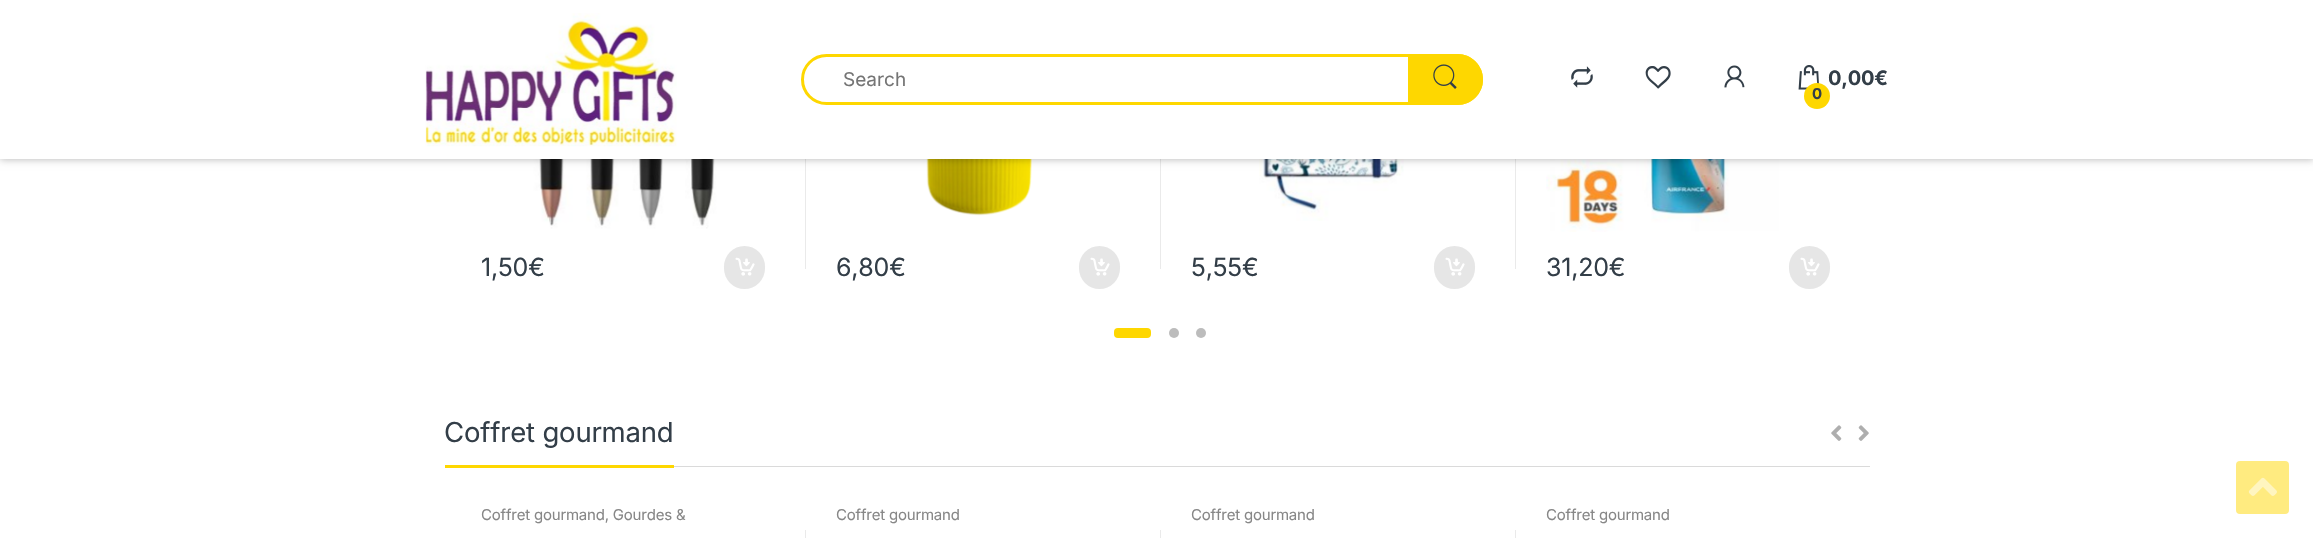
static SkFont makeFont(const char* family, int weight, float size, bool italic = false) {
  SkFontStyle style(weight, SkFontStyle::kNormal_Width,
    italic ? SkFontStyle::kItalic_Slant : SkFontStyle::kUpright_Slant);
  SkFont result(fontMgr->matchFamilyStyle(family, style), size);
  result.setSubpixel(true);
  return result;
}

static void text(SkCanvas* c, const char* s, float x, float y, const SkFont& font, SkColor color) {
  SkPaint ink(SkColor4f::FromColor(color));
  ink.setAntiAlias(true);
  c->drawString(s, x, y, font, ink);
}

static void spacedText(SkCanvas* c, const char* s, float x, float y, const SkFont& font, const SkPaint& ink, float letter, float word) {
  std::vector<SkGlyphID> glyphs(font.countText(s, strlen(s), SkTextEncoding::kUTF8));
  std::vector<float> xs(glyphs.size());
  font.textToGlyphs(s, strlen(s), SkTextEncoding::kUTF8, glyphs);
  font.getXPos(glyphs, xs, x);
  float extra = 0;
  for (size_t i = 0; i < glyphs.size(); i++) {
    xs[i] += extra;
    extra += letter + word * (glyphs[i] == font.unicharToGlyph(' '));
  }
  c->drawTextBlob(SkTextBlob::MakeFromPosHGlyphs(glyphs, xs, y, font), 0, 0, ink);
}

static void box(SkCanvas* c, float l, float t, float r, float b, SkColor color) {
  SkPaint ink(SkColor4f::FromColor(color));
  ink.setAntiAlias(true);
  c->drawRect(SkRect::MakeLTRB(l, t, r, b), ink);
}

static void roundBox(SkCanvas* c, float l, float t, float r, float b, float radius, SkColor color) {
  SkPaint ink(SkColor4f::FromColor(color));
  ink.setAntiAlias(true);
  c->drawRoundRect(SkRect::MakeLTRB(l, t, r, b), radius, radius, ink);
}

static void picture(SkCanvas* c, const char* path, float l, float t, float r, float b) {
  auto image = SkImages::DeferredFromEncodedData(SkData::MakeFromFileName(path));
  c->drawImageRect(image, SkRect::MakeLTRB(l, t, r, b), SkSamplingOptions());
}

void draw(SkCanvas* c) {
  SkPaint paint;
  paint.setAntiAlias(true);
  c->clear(0xffffffff);
  picture(c, "img_07.png", 527, 159, 723, 229);
  box(c, 805, 159, 806, 269, 0xffeaeaea);
  picture(c, "img_09.png", 926, 159, 1032, 216);
  box(c, 1160, 159, 1161, 269, 0xffeaeaea);
  picture(c, "img_10.png", 1259, 159, 1404, 221);
  box(c, 1515, 159, 1516, 269, 0xffeaeaea);
  picture(c, "img_11.png", 1546, 159, 1779, 232);
  paint.setColor(0x4d010101);
  paint.setMaskFilter(SkMaskFilter::MakeBlur(kNormal_SkBlurStyle, 4));
  c->drawRect(SkRect::MakeLTRB(0, 0, 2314, 159), paint);
  paint.setMaskFilter(nullptr);
  box(c, 0, 0, 2313, 159, 0xffffffff);
  picture(c, "img_01.png", 425, 13, 677, 147);
  paint.setStyle(SkPaint::kStroke_Style);
  paint.setStrokeWidth(3);
  paint.setColor(0xfffed700);
  c->drawRoundRect(SkRect::MakeLTRB(802.5f, 55.5f, 1481.5f, 103.5f), 24, 24, paint);
  SkFont face1 = makeFont("Inter", 400, 19);
  text(c, "Search", 843, 86, face1, 0xff757575);
  paint.setStyle(SkPaint::kFill_Style);
  c->drawPath(SkPathBuilder().moveTo(1408, 54).lineTo(1457.5f, 54).cubicTo(1471.5f, 54, 1483, 65.5f, 1483, 79.5f).cubicTo(1483, 93.5f, 1471.5f, 105, 1457.5f, 105).lineTo(1408, 105).close().detach(), paint);
  picture(c, "img_02.png", 1433, 64, 1457, 89);
  picture(c, "img_03.png", 1571, 66, 1593, 88);
  picture(c, "img_04.png", 1645, 66, 1671, 89);
  picture(c, "img_05.png", 1724, 65, 1745, 88);
  picture(c, "img_06.png", 1798, 65, 1819, 90);
  SkFont face2 = makeFont("Inter", 700, 20);
  paint.setColor(0xff333e48);
  spacedText(c, "0,00€", 1828, 85, face2, paint, -0.2f, 0);
  paint.setColor(0xfffed700);
  c->drawCircle(1817, 96, 13, paint);
  SkFont face3 = makeFont("Inter", 700, 15);
  paint.setColor(0xff333e48);
  spacedText(c, "0", 1812, 99, face3, paint, -0.2f, 0);
  SkFont face4 = makeFont("Inter", 400, 25);
  spacedText(c, "1,50€", 481, 276, face4, paint, -0.2f, 0);
  roundBox(c, 724, 246, 765, 289, 20.5f, 0xffe6e6e6);
  picture(c, "img_08.png", 735, 257, 755, 276);
  spacedText(c, "6,80€", 836, 276, face4, paint, -0.2f, 0);
  roundBox(c, 1079, 246, 1120, 289, 20.5f, 0xffe6e6e6);
  picture(c, "img_08.png", 1090, 257, 1110, 276);
  spacedText(c, "5,55€", 1191, 276, face4, paint, -0.2f, 0);
  roundBox(c, 1434, 246, 1475, 289, 20.5f, 0xffe6e6e6);
  picture(c, "img_08.png", 1445, 257, 1465, 276);
  spacedText(c, "31,20€", 1546, 276, face4, paint, -0.2f, 0);
  roundBox(c, 1789, 246, 1830, 289, 20.5f, 0xffe6e6e6);
  picture(c, "img_08.png", 1800, 257, 1820, 276);
  roundBox(c, 1114, 328, 1151, 338, 4, 0xfffed700);
  paint.setColor(0xffbcbcbc);
  c->drawCircle(1174, 333, 5, paint);
  c->drawCircle(1201, 333, 5, paint);
  box(c, 674, 466, 1870, 467, 0xffdadada);
  SkFont face5 = makeFont("Inter", 400, 27.5f);
  paint.setColor(0xff333e48);
  spacedText(c, "Coffret gourmand", 444, 442, face5, paint, -0.2f, 0);
  box(c, 445, 465, 674, 468, 0xfffed700);
  picture(c, "img_12.png", 1831, 425, 1842, 441);
  picture(c, "img_13.png", 1858, 425, 1869, 441);
  SkFont face6 = makeFont("Inter", 400, 15);
  paint.setColor(0xff878787);
  spacedText(c, "Coffret gourmand, Gourdes &", 481, 520, face6, paint, -0.2f, 0);
  box(c, 805, 530, 806, 538, 0xffeaeaea);
  spacedText(c, "Coffret gourmand", 836, 520, face6, paint, -0.2f, 0);
  box(c, 1160, 530, 1161, 538, 0xffeaeaea);
  spacedText(c, "Coffret gourmand", 1191, 520, face6, paint, -0.2f, 0);
  box(c, 1515, 530, 1516, 538, 0xffeaeaea);
  spacedText(c, "Coffret gourmand", 1546, 520, face6, paint, -0.2f, 0);
  roundBox(c, 2236, 461, 2289, 514, 4, 0xffffeb80);
  picture(c, "img_14.png", 2248, 477, 2277, 496);
}
